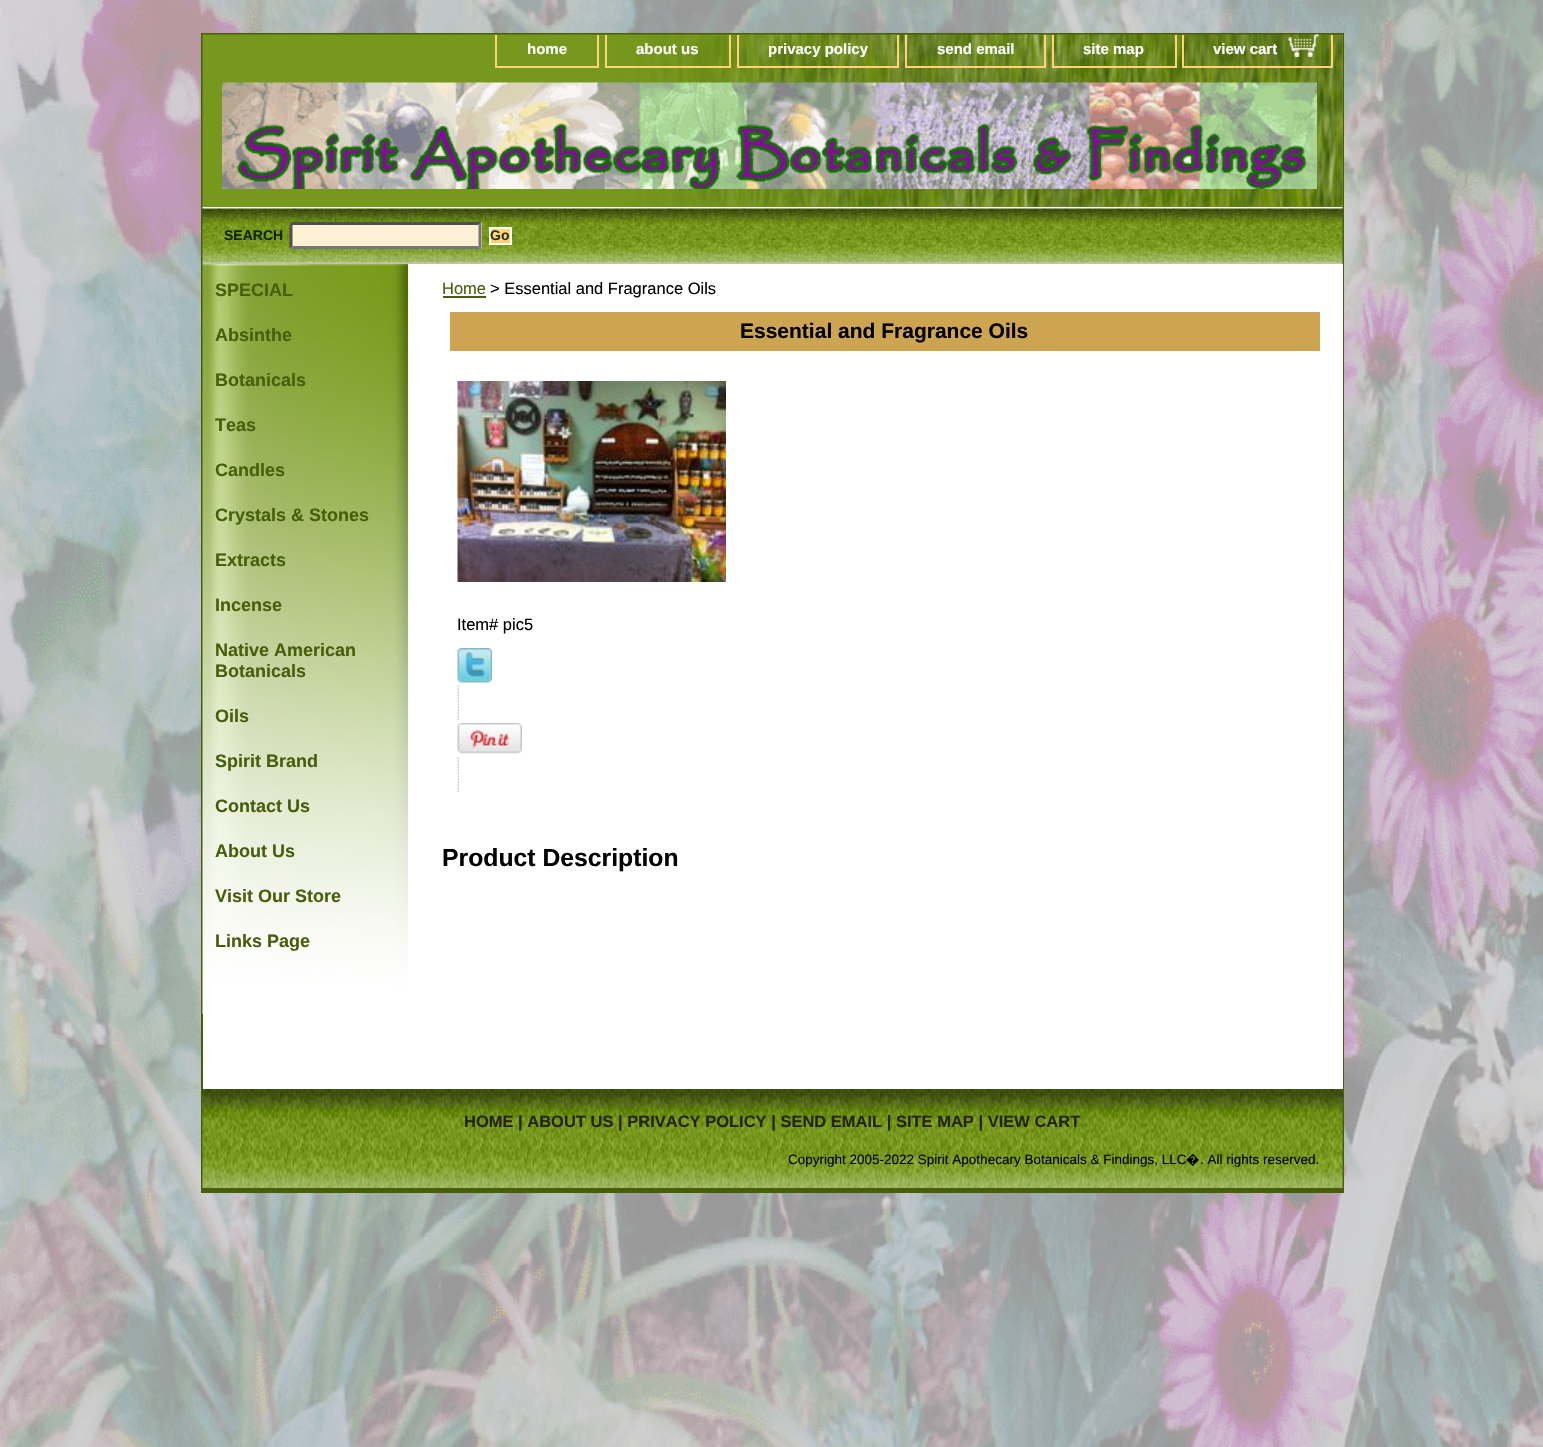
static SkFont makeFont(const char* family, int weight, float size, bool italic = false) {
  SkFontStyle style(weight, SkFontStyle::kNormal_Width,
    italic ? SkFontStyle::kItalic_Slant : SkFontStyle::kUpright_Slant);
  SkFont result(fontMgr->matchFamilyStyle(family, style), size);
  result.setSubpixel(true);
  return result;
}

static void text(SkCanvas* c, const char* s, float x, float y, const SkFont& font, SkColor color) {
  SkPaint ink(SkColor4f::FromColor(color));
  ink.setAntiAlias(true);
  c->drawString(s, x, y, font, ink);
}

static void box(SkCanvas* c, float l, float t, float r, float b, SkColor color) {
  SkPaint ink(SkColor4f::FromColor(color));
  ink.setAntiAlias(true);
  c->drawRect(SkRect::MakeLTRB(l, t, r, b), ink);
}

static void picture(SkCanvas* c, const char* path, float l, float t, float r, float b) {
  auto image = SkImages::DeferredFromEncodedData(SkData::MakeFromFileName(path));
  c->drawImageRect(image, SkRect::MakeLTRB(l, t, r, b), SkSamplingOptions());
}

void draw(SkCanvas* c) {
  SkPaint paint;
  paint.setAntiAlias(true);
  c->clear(0xffffffff);
  picture(c, "img_01.png", 0, 0, 1543, 1447);
  paint.setStyle(SkPaint::kStroke_Style);
  paint.setStrokeWidth(2);
  paint.setColor(0xff475e0b);
  c->drawRect(SkRect::MakeLTRB(202, 34, 1343, 1192), paint);
  box(c, 1342, 35, 1343, 207, 0xff76981c);
  picture(c, "img_02.png", 202, 34, 1343, 207);
  box(c, 597, 35, 599, 68, 0xffffd272);
  box(c, 495, 66, 599, 68, 0xffffd272);
  box(c, 495, 35, 497, 68, 0xffffd272);
  SkFont face1 = makeFont("Liberation Sans", 700, 15);
  text(c, "home", 527, 54, face1, 0xffffffff);
  box(c, 729, 35, 731, 68, 0xffffd272);
  box(c, 605, 66, 731, 68, 0xffffd272);
  box(c, 605, 35, 607, 68, 0xffffd272);
  text(c, "about us", 636, 54, face1, 0xffffffff);
  box(c, 897, 35, 899, 68, 0xffffd272);
  box(c, 737, 66, 899, 68, 0xffffd272);
  box(c, 737, 35, 739, 68, 0xffffd272);
  text(c, "privacy policy", 768, 54, face1, 0xffffffff);
  box(c, 1044, 35, 1046, 68, 0xffffd272);
  box(c, 905, 66, 1046, 68, 0xffffd272);
  box(c, 905, 35, 907, 68, 0xffffd272);
  text(c, "send email", 937, 54, face1, 0xffffffff);
  box(c, 1175, 35, 1177, 68, 0xffffd272);
  box(c, 1052, 66, 1176, 68, 0xffffd272);
  box(c, 1052, 35, 1054, 68, 0xffffd272);
  text(c, "site map", 1083, 54, face1, 0xffffffff);
  box(c, 1331, 35, 1333, 68, 0xffffd272);
  box(c, 1182, 66, 1332, 68, 0xffffd272);
  box(c, 1182, 35, 1184, 68, 0xffffd272);
  picture(c, "img_03.png", 1288, 34, 1319, 57);
  text(c, "view cart", 1213, 54, face1, 0xffffffff);
  picture(c, "img_04.png", 222, 82, 1317, 189);
  picture(c, "img_05.png", 202, 207, 1343, 264);
  SkFont face2 = makeFont("Liberation Sans", 700, 14);
  text(c, "SEARCH", 224, 240, face2, 0xff0e2508);
  box(c, 290, 222, 482, 249, 0xfffff1d4);
  paint.setStyle(SkPaint::kFill_Style);
  paint.setColor(0xff4f4f4f);
  c->drawPath(SkPathBuilder().moveTo(290, 222).lineTo(482, 222).lineTo(478, 225).lineTo(292, 225).close().detach(), paint);
  paint.setColor(0xff767676);
  c->drawPath(SkPathBuilder().moveTo(481.5f, 222).lineTo(481.5f, 249).lineTo(478.5f, 246).lineTo(478.5f, 225).close().detach(), paint);
  c->drawPath(SkPathBuilder().moveTo(482, 249).lineTo(290, 249).lineTo(292, 246).lineTo(478, 246).close().detach(), paint);
  paint.setColor(0xff4f4f4f);
  c->drawPath(SkPathBuilder().moveTo(289.5f, 249).lineTo(289.5f, 222).lineTo(292.5f, 225).lineTo(292.5f, 246).close().detach(), paint);
  picture(c, "img_06.png", 491, 229, 510, 243);
  paint.setStyle(SkPaint::kStroke_Style);
  paint.setColor(0xffffffff);
  c->drawRect(SkRect::MakeLTRB(490, 228, 511, 244), paint);
  text(c, "Go", 490, 240, face2, 0xff293413);
  box(c, 203, 264, 1343, 1089, 0xffffffff);
  picture(c, "img_07.png", 202, 264, 408, 1014);
  SkFont face3 = makeFont("Liberation Sans", 700, 18);
  text(c, "SPECIAL", 215, 296, face3, 0xff475e0b);
  text(c, "Absinthe", 215, 341, face3, 0xff475e0b);
  text(c, "Botanicals", 215, 386, face3, 0xff475e0b);
  text(c, "Teas", 215, 431, face3, 0xff475e0b);
  text(c, "Candles", 215, 476, face3, 0xff475e0b);
  text(c, "Crystals & Stones", 215, 521, face3, 0xff475e0b);
  text(c, "Extracts", 215, 566, face3, 0xff475e0b);
  text(c, "Incense", 215, 611, face3, 0xff475e0b);
  text(c, "Native American", 215, 656, face3, 0xff475e0b);
  text(c, "Botanicals", 215, 677, face3, 0xff475e0b);
  text(c, "Oils", 215, 722, face3, 0xff475e0b);
  text(c, "Spirit Brand", 215, 767, face3, 0xff475e0b);
  text(c, "Contact Us", 215, 812, face3, 0xff475e0b);
  text(c, "About Us", 215, 857, face3, 0xff475e0b);
  text(c, "Visit Our Store", 215, 902, face3, 0xff475e0b);
  text(c, "Links Page", 215, 947, face3, 0xff475e0b);
  SkFont face4 = makeFont("Liberation Sans", 400, 16.5f);
  text(c, "Home", 442, 294, face4, 0xff475e0b);
  box(c, 443, 296, 486, 298, 0xff475e0b);
  text(c, "> Essential and Fragrance Oils", 490, 294, face4, 0xff000000);
  box(c, 450, 312, 1320, 351, 0xffcda451);
  SkFont face5 = makeFont("Liberation Sans", 700, 21);
  text(c, "Essential and Fragrance Oils", 740, 338, face5, 0xff000000);
  picture(c, "img_08.png", 457, 381, 726, 582);
  text(c, "Item# pic5", 457, 630, face4, 0xff000000);
  picture(c, "img_09.png", 457, 648, 492, 683);
  picture(c, "img_10.png", 457, 685, 459, 720);
  picture(c, "img_11.png", 457, 723, 522, 754);
  picture(c, "img_10.png", 457, 757, 459, 792);
  SkFont face6 = makeFont("Liberation Sans", 700, 24.75f);
  text(c, "Product Description", 442, 866, face6, 0xff000000);
  box(c, 203, 1089, 1342, 1191, 0xff475e0b);
  picture(c, "img_12.png", 202, 1089, 1343, 1188);
  SkFont face7 = makeFont("Liberation Sans", 700, 16.5f);
  text(c, "HOME | ABOUT US | PRIVACY POLICY | SEND EMAIL | SITE MAP | VIEW CART", 464, 1127, face7, 0xff242411);
  SkFont face8 = makeFont("Liberation Sans", 400, 13.5f);
  text(c, "Copyright 2005-2022 Spirit Apothecary Botanicals & Findings, LLC", 788, 1164, face8, 0xff000000);
  SkFont face9 = makeFont("Noto Sans", 400, 13.5f);
  text(c, "�", 1186, 1164, face9, 0xff000000);
  text(c, ". All rights reserved.", 1200, 1164, face8, 0xff000000);
}
